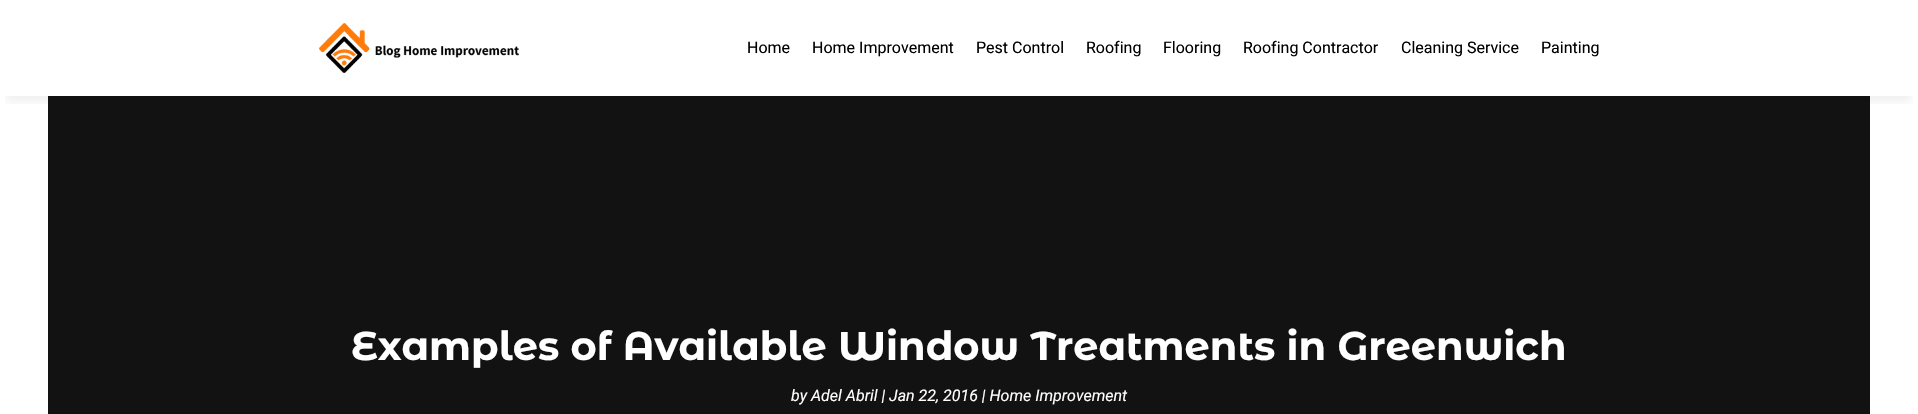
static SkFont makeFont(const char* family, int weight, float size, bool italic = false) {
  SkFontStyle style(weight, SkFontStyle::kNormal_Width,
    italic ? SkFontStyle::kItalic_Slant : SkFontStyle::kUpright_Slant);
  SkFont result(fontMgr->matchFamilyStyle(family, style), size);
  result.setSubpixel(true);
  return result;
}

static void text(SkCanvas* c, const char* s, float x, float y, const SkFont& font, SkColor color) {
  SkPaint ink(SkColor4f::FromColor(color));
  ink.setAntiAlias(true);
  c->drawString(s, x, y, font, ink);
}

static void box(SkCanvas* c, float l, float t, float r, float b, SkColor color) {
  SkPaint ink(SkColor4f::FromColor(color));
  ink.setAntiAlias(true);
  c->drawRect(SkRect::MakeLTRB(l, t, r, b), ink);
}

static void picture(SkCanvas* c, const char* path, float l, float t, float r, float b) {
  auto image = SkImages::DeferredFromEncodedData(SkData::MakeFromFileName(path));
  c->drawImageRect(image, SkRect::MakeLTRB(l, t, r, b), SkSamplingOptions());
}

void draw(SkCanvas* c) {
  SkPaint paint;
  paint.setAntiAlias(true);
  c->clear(0xffffffff);
  box(c, 48, 96, 1870, 414, 0xff121212);
  c->save();
  c->clipRect(SkRect::MakeLTRB(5, 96, 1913, 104));
  paint.setColor(0x0f000000);
  paint.setMaskFilter(SkMaskFilter::MakeBlur(kNormal_SkBlurStyle, 5));
  c->drawRect(SkRect::MakeLTRB(6, 18, 1912, 102), paint);
  paint.setMaskFilter(nullptr);
  c->restore();
  picture(c, "img_01.png", 319, 23, 519, 73);
  SkFont face1 = makeFont("Roboto", 400, 16);
  text(c, "Home", 747, 53, face1, 0xff000000);
  text(c, "Home Improvement", 812, 53, face1, 0xff000000);
  text(c, "Pest Control", 976, 53, face1, 0xff000000);
  text(c, "Roofing", 1086, 53, face1, 0xff000000);
  text(c, "Flooring", 1163, 53, face1, 0xff000000);
  text(c, "Roofing Contractor", 1243, 53, face1, 0xff000000);
  text(c, "Cleaning Service", 1401, 53, face1, 0xff000000);
  text(c, "Painting", 1541, 53, face1, 0xff000000);
  SkFont face2 = makeFont("Montserrat Alternates", 700, 40);
  text(c, "Examples of Available Window Treatments in Greenwich", 351, 360, face2, 0xffffffff);
  SkFont face3 = makeFont("Roboto", 400, 16, true);
  text(c, "by Adel Abril | Jan 22, 2016 | Home Improvement", 791, 401, face3, 0xffffffff);
}
